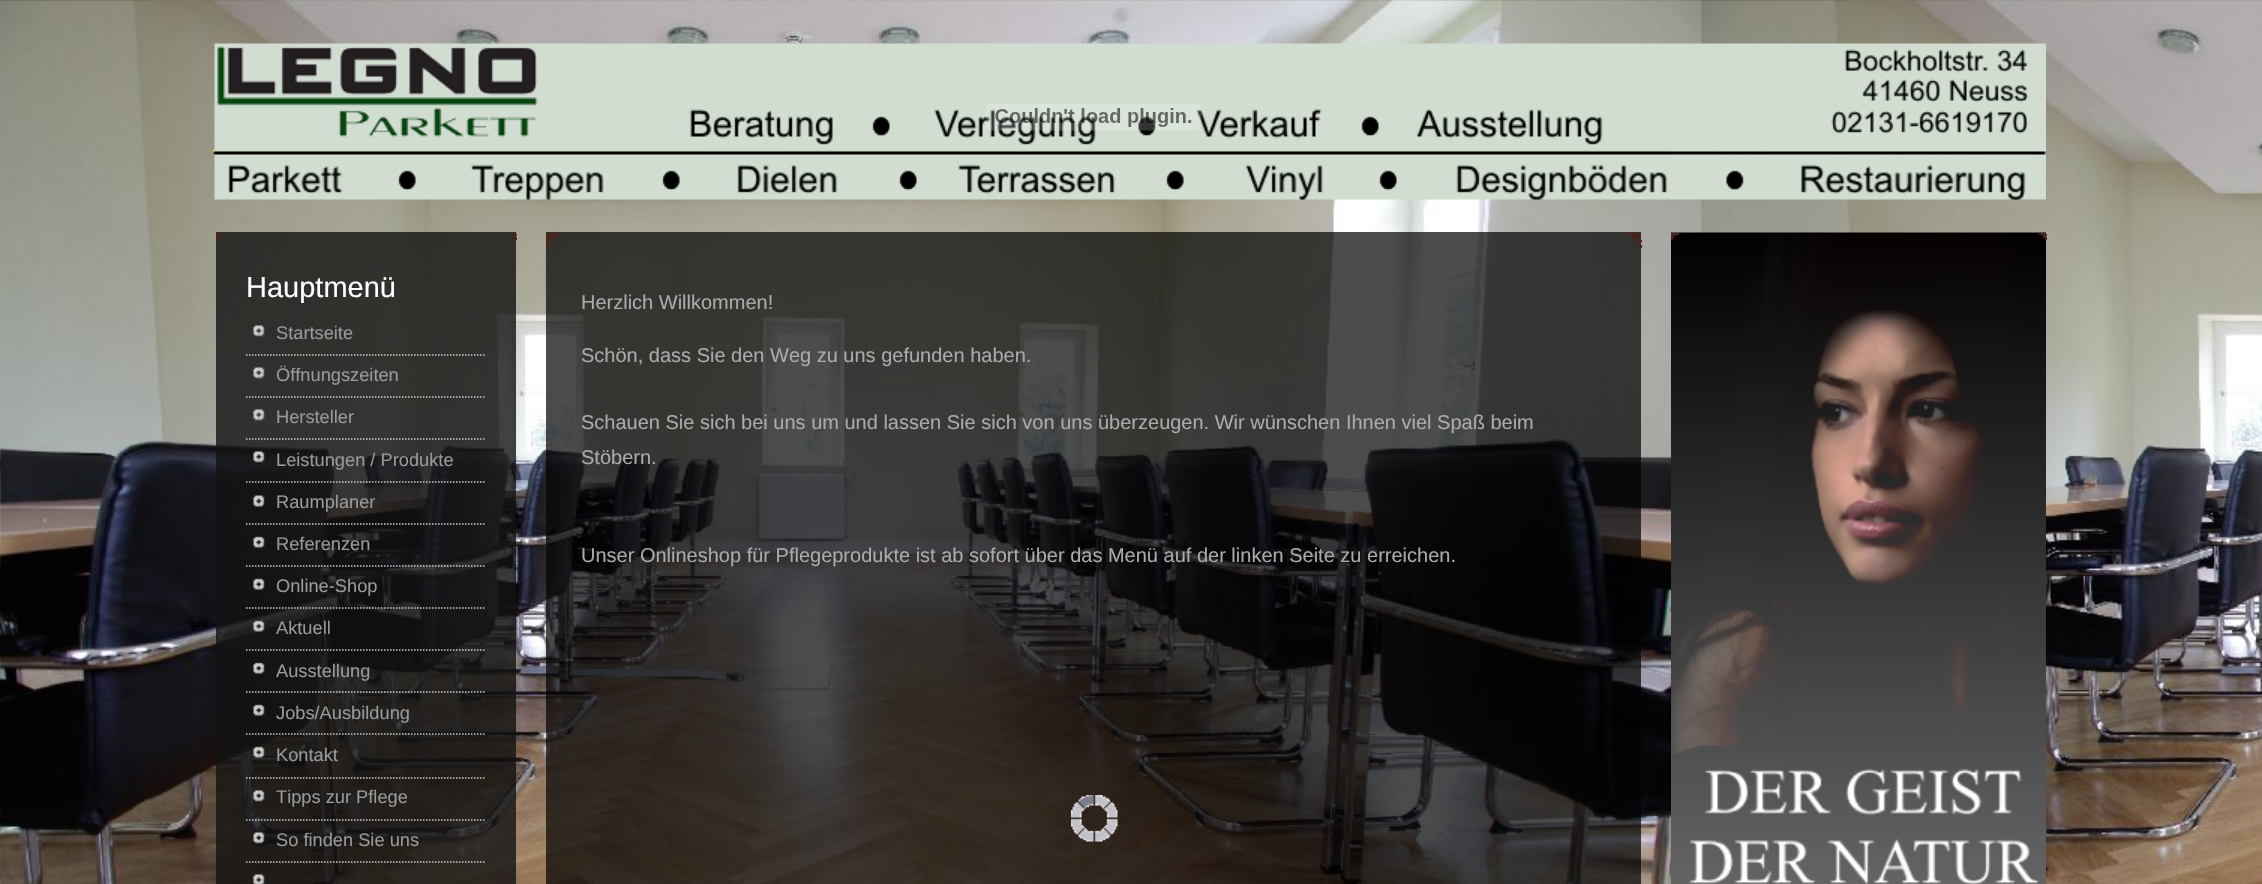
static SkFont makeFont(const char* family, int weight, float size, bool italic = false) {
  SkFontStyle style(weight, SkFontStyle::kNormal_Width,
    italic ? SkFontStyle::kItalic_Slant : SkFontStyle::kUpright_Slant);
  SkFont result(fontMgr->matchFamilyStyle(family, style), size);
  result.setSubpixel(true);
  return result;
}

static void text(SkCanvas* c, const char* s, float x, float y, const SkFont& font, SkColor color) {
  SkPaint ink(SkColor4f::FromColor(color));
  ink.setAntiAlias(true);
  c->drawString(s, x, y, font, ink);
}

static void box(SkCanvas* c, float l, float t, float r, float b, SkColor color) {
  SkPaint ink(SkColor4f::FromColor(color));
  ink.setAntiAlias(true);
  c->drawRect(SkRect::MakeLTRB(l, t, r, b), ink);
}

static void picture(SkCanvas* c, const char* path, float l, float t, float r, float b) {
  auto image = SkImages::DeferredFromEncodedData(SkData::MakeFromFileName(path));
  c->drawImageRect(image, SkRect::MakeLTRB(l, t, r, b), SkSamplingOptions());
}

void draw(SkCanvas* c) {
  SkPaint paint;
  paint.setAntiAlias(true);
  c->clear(0xffffffff);
  picture(c, "img_01.png", 0, 0, 2262, 884);
  picture(c, "img_02.png", 212, 43, 2046, 200);
  picture(c, "img_03.png", 985, 103, 1202, 131);
  box(c, 216, 232, 516, 884, 0xcc111111);
  box(c, 509, 233, 516, 235, 0xff47251c);
  box(c, 216, 233, 224, 235, 0xff47251c);
  box(c, 512, 234, 517, 236, 0xff47251c);
  box(c, 216, 235, 221, 236, 0xff47251c);
  box(c, 513, 236, 516, 238, 0xff47251c);
  box(c, 216, 236, 219, 238, 0xff47251c);
  box(c, 515, 237, 517, 240, 0xff47251c);
  box(c, 216, 237, 218, 240, 0xff47251c);
  SkFont face1 = makeFont("Liberation Sans", 400, 29);
  text(c, "Hauptmenü", 246, 297, face1, 0xffffffff);
  paint.setStyle(SkPaint::kStroke_Style);
  paint.setStrokeWidth(1.5f);
  paint.setColor(0xffcccccc);
  paint.setPathEffect(SkDashPathEffect::Make({{1.5f, 1.5f}}, 0));
  c->drawPath(SkPathBuilder().moveTo(246, 355).lineTo(486, 355).detach(), paint);
  paint.setPathEffect(nullptr);
  picture(c, "img_04.png", 253, 325, 265, 337);
  SkFont face2 = makeFont("Liberation Sans", 400, 18.25f);
  text(c, "Startseite", 276, 339, face2, 0xff999999);
  paint.setPathEffect(SkDashPathEffect::Make({{1.5f, 1.5f}}, 0));
  c->drawPath(SkPathBuilder().moveTo(246, 397).lineTo(486, 397).detach(), paint);
  paint.setPathEffect(nullptr);
  picture(c, "img_05.png", 253, 367, 265, 379);
  text(c, "Öffnungszeiten", 276, 381, face2, 0xff999999);
  paint.setPathEffect(SkDashPathEffect::Make({{1.5f, 1.5f}}, 0));
  c->drawPath(SkPathBuilder().moveTo(246, 439).lineTo(486, 439).detach(), paint);
  paint.setPathEffect(nullptr);
  picture(c, "img_06.png", 253, 409, 265, 421);
  text(c, "Hersteller", 276, 423, face2, 0xff999999);
  paint.setPathEffect(SkDashPathEffect::Make({{1.5f, 1.5f}}, 0));
  c->drawPath(SkPathBuilder().moveTo(246, 482).lineTo(486, 482).detach(), paint);
  paint.setPathEffect(nullptr);
  picture(c, "img_07.png", 253, 451, 265, 463);
  text(c, "Leistungen / Produkte", 276, 466, face2, 0xff999999);
  paint.setPathEffect(SkDashPathEffect::Make({{1.5f, 1.5f}}, 0));
  c->drawPath(SkPathBuilder().moveTo(246, 524).lineTo(486, 524).detach(), paint);
  paint.setPathEffect(nullptr);
  picture(c, "img_08.png", 253, 495, 265, 507);
  text(c, "Raumplaner", 276, 508, face2, 0xff999999);
  paint.setPathEffect(SkDashPathEffect::Make({{1.5f, 1.5f}}, 0));
  c->drawPath(SkPathBuilder().moveTo(246, 566).lineTo(486, 566).detach(), paint);
  paint.setPathEffect(nullptr);
  picture(c, "img_09.png", 253, 536, 265, 548);
  text(c, "Referenzen", 276, 550, face2, 0xff999999);
  paint.setPathEffect(SkDashPathEffect::Make({{1.5f, 1.5f}}, 0));
  c->drawPath(SkPathBuilder().moveTo(246, 608).lineTo(486, 608).detach(), paint);
  paint.setPathEffect(nullptr);
  picture(c, "img_10.png", 253, 578, 265, 590);
  text(c, "Online-Shop", 276, 592, face2, 0xff999999);
  paint.setPathEffect(SkDashPathEffect::Make({{1.5f, 1.5f}}, 0));
  c->drawPath(SkPathBuilder().moveTo(246, 650).lineTo(486, 650).detach(), paint);
  paint.setPathEffect(nullptr);
  picture(c, "img_11.png", 253, 620, 265, 632);
  text(c, "Aktuell", 276, 634, face2, 0xff999999);
  paint.setPathEffect(SkDashPathEffect::Make({{1.5f, 1.5f}}, 0));
  c->drawPath(SkPathBuilder().moveTo(246, 692).lineTo(486, 692).detach(), paint);
  paint.setPathEffect(nullptr);
  picture(c, "img_12.png", 253, 662, 265, 674);
  text(c, "Ausstellung", 276, 677, face2, 0xff999999);
  paint.setPathEffect(SkDashPathEffect::Make({{1.5f, 1.5f}}, 0));
  c->drawPath(SkPathBuilder().moveTo(246, 734).lineTo(486, 734).detach(), paint);
  paint.setPathEffect(nullptr);
  picture(c, "img_13.png", 253, 704, 265, 716);
  text(c, "Jobs/Ausbildung", 276, 719, face2, 0xff999999);
  paint.setPathEffect(SkDashPathEffect::Make({{1.5f, 1.5f}}, 0));
  c->drawPath(SkPathBuilder().moveTo(246, 778).lineTo(486, 778).detach(), paint);
  paint.setPathEffect(nullptr);
  picture(c, "img_14.png", 253, 746, 265, 758);
  text(c, "Kontakt", 276, 761, face2, 0xff999999);
  paint.setPathEffect(SkDashPathEffect::Make({{1.5f, 1.5f}}, 0));
  c->drawPath(SkPathBuilder().moveTo(246, 820).lineTo(486, 820).detach(), paint);
  paint.setPathEffect(nullptr);
  picture(c, "img_15.png", 253, 790, 265, 802);
  text(c, "Tipps zur Pflege", 276, 803, face2, 0xff999999);
  paint.setPathEffect(SkDashPathEffect::Make({{1.5f, 1.5f}}, 0));
  c->drawPath(SkPathBuilder().moveTo(246, 862).lineTo(486, 862).detach(), paint);
  paint.setPathEffect(nullptr);
  picture(c, "img_16.png", 253, 832, 265, 844);
  text(c, "So finden Sie uns", 276, 846, face2, 0xff999999);
  picture(c, "img_17.png", 253, 874, 265, 884);
  box(c, 546, 232, 1641, 884, 0xb3000000);
  box(c, 1626, 233, 1641, 235, 0xff47251c);
  box(c, 546, 233, 561, 235, 0xff47251c);
  box(c, 1629, 235, 1641, 236, 0xff47251c);
  box(c, 546, 235, 558, 236, 0xff47251c);
  box(c, 1632, 236, 1641, 238, 0xff47251c);
  box(c, 546, 236, 555, 238, 0xff47251c);
  box(c, 1634, 238, 1641, 239, 0xff47251c);
  box(c, 546, 238, 554, 239, 0xff47251c);
  box(c, 1635, 239, 1641, 241, 0xff47251c);
  box(c, 546, 239, 552, 241, 0xff47251c);
  box(c, 1637, 240, 1642, 242, 0xff47251c);
  box(c, 546, 241, 551, 242, 0xff47251c);
  box(c, 1638, 242, 1641, 245, 0xff47251c);
  box(c, 546, 242, 549, 245, 0xff47251c);
  box(c, 1640, 245, 1642, 248, 0xff47251c);
  box(c, 546, 245, 548, 248, 0xff47251c);
  SkFont face3 = makeFont("Liberation Sans", 400, 20);
  text(c, "Herzlich Willkommen!", 581, 309, face3, 0xffaaaaaa);
  text(c, "Schön, dass Sie den Weg zu uns gefunden haben.", 581, 362, face3, 0xffaaaaaa);
  text(c, "Schauen Sie sich bei uns um und lassen Sie sich von uns überzeugen. Wir wünschen Ihnen viel Spaß beim", 581, 429, face3, 0xffaaaaaa);
  text(c, "Stöbern.", 581, 464, face3, 0xffaaaaaa);
  text(c, "Unser Onlineshop für Pflegeprodukte ist ab sofort über das Menü auf der linken Seite zu erreichen.", 581, 562, face3, 0xffaaaaaa);
  picture(c, "img_18.png", 1071, 795, 1118, 842);
  picture(c, "img_19.png", 1671, 232, 2046, 884);
  box(c, 2039, 233, 2046, 235, 0xff47251c);
  box(c, 1671, 233, 1679, 235, 0xff47251c);
  box(c, 2042, 234, 2047, 236, 0xff47251c);
  box(c, 1671, 235, 1676, 236, 0xff47251c);
  box(c, 2043, 236, 2046, 238, 0xff47251c);
  box(c, 1671, 236, 1674, 238, 0xff47251c);
  box(c, 2045, 237, 2047, 240, 0xff47251c);
  box(c, 1671, 237, 1673, 240, 0xff47251c);
}
